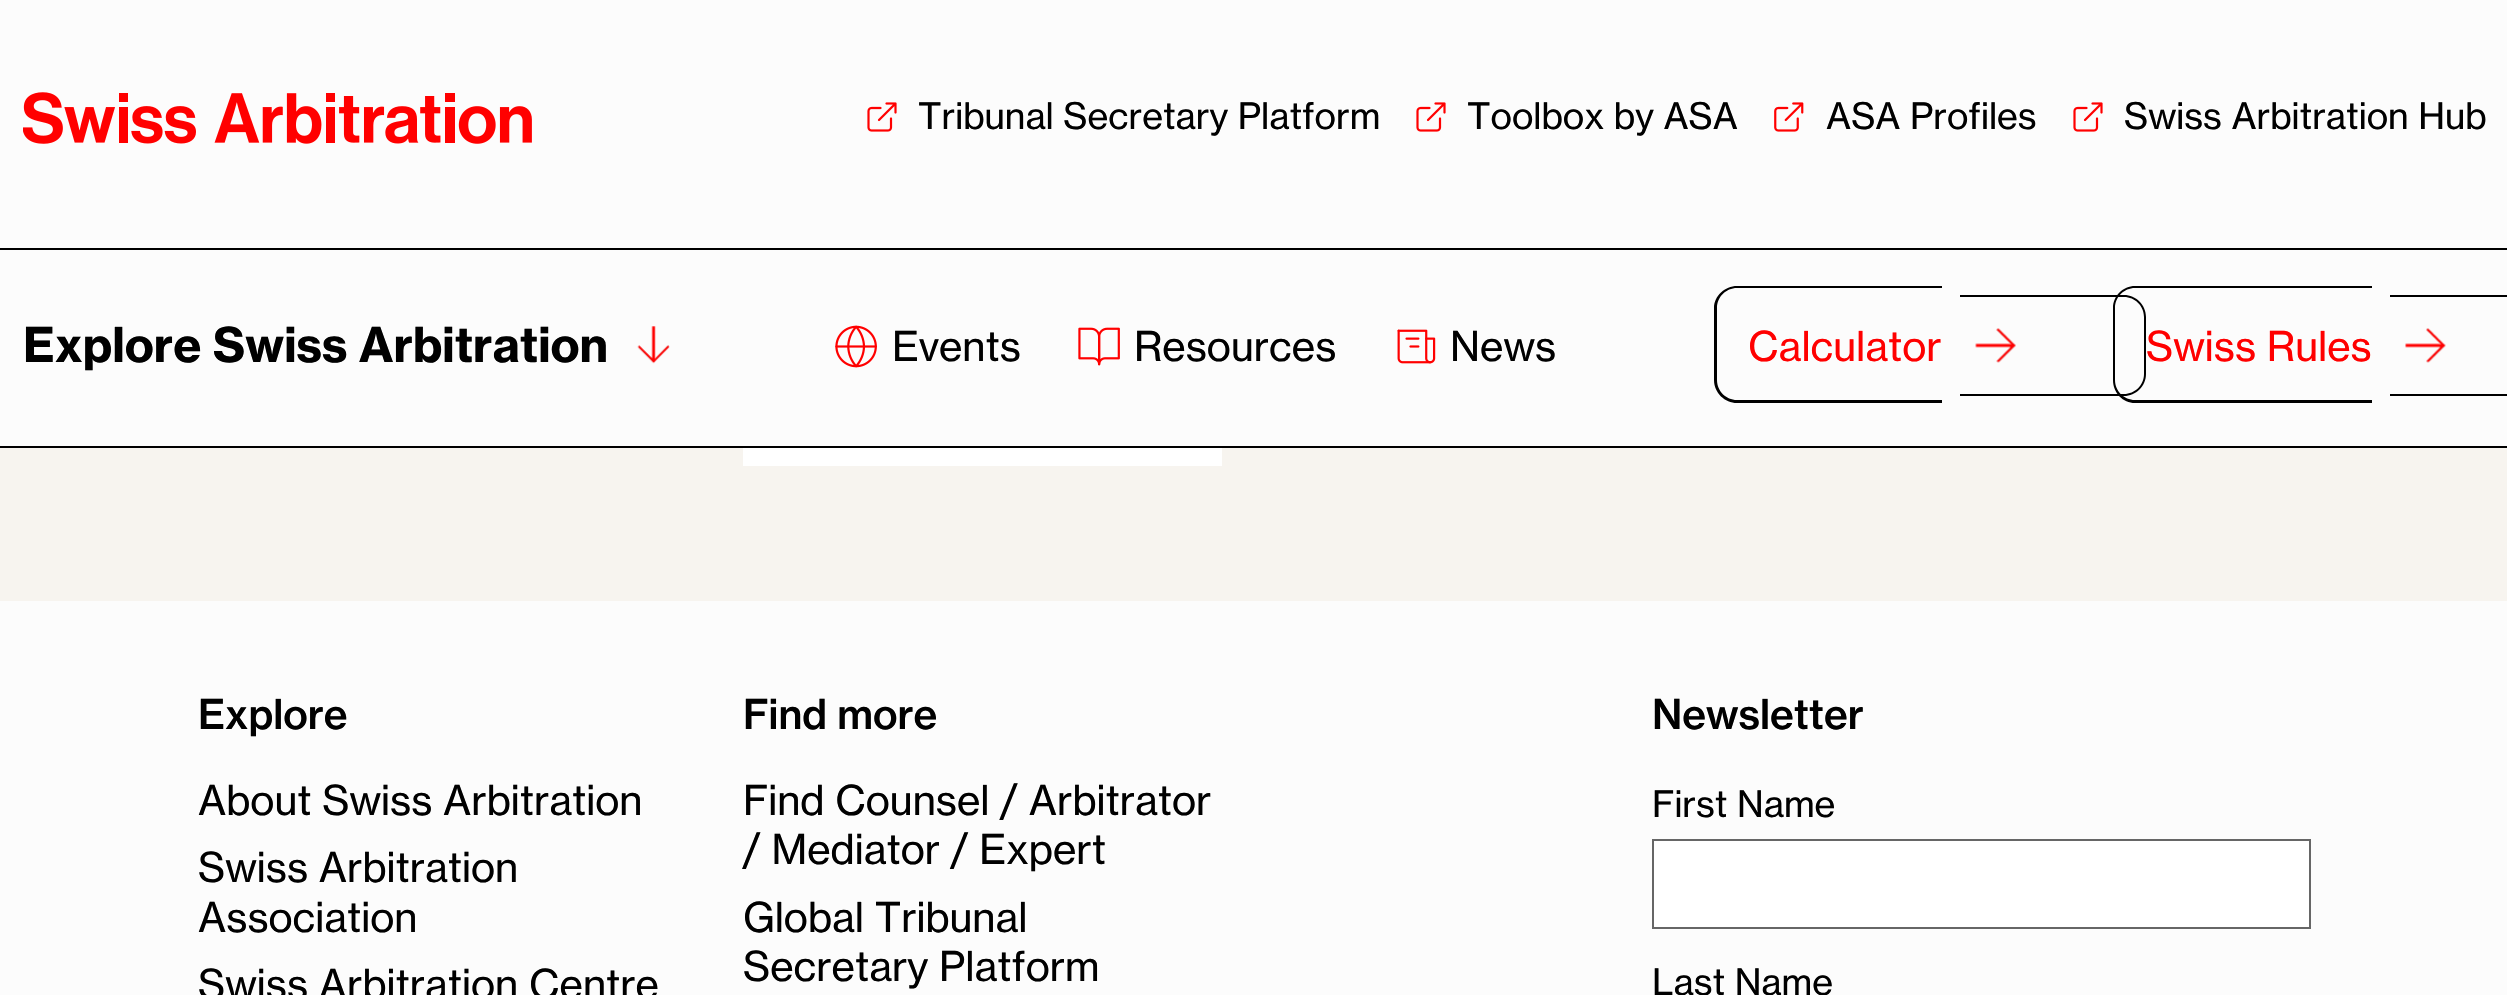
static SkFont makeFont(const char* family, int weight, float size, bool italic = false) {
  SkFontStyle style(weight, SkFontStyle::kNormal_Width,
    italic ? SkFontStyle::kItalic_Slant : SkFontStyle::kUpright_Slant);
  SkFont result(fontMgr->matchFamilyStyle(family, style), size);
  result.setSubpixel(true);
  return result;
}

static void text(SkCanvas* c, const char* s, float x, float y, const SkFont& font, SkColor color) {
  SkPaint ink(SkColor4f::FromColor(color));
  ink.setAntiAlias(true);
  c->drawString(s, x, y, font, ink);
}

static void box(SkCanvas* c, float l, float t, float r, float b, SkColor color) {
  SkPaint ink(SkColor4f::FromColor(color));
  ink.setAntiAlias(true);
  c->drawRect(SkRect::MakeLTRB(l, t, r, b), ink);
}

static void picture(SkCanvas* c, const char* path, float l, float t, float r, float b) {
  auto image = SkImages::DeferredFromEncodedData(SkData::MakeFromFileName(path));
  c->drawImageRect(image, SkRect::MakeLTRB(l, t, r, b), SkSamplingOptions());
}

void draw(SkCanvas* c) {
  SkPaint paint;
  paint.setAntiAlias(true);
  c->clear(0xfff7f4ef);
  box(c, 0, 0, 2507, 446, 0xfffcfcfc);
  box(c, 0, 248, 2507, 250, 0xff000000);
  picture(c, "img_01.png", 23, 92, 532, 144);
  picture(c, "img_02.png", 867, 102, 897, 132);
  SkFont face1 = makeFont("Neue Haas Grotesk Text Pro", 400, 36);
  text(c, "Tribunal Secretary Platform", 918, 129, face1, 0xff000000);
  picture(c, "img_02.png", 1416, 102, 1446, 132);
  text(c, "Toolbox by ASA", 1467, 129, face1, 0xff000000);
  picture(c, "img_03.png", 1774, 102, 1804, 132);
  text(c, "ASA Profiles", 1826, 129, face1, 0xff000000);
  picture(c, "img_02.png", 2073, 102, 2103, 132);
  text(c, "Swiss Arbitration Hub", 2124, 129, face1, 0xff000000);
  SkFont face2 = makeFont("Neue Haas Grotesk Text Pro", 700, 47.25f);
  text(c, "Explore Swiss Arbitration", 23, 362, face2, 0xff000000);
  picture(c, "img_04.png", 637, 326, 670, 364);
  picture(c, "img_05.png", 835, 325, 877, 368);
  SkFont face3 = makeFont("Neue Haas Grotesk Text Pro", 400, 40.5f);
  text(c, "Events", 892, 361, face3, 0xff000000);
  picture(c, "img_06.png", 1078, 327, 1120, 366);
  text(c, "Resources", 1134, 361, face3, 0xff000000);
  picture(c, "img_07.png", 1397, 329, 1436, 364);
  text(c, "News", 1450, 361, face3, 0xff000000);
  paint.setColor(0xff000000);
  c->drawPath(SkPathBuilder(SkPathFillType::kEvenOdd).moveTo(1737, 286).lineTo(1942, 286).lineTo(1942, 403).lineTo(1737, 403).cubicTo(1725, 403, 1714, 393, 1714, 380).lineTo(1714, 308).cubicTo(1714, 296, 1725, 286, 1737, 286).close().moveTo(1737, 288).lineTo(1942, 288).lineTo(1942, 400).lineTo(1737, 400).cubicTo(1726, 400, 1717, 391, 1717, 380).lineTo(1717, 308).cubicTo(1717, 297, 1726, 288, 1737, 288).close().detach(), paint);
  c->drawPath(SkPathBuilder(SkPathFillType::kEvenOdd).moveTo(1960, 295).lineTo(2124, 295).cubicTo(2136, 295, 2146, 305, 2146, 317).lineTo(2146, 374).cubicTo(2146, 386, 2136, 396, 2124, 396).lineTo(1960, 396).close().moveTo(1960, 297).lineTo(2124, 297).cubicTo(2135, 297, 2144, 306, 2144, 317).lineTo(2144, 374).cubicTo(2144, 385, 2135, 394, 2124, 394).lineTo(1960, 394).close().detach(), paint);
  text(c, "Calculator", 1748, 361, face3, 0xffff0000);
  picture(c, "img_08.png", 1975, 328, 2016, 363);
  c->drawPath(SkPathBuilder(SkPathFillType::kEvenOdd).moveTo(2135, 286).lineTo(2372, 286).lineTo(2372, 403).lineTo(2135, 403).cubicTo(2123, 403, 2113, 393, 2113, 380).lineTo(2113, 308).cubicTo(2113, 296, 2123, 286, 2135, 286).close().moveTo(2135, 288).lineTo(2372, 288).lineTo(2372, 400).lineTo(2135, 400).cubicTo(2124, 400, 2115, 391, 2115, 380).lineTo(2115, 308).cubicTo(2115, 297, 2124, 288, 2135, 288).close().detach(), paint);
  c->drawPath(SkPathBuilder(SkPathFillType::kEvenOdd).moveTo(2390, 295).lineTo(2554, 295).cubicTo(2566, 295, 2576, 305, 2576, 317).lineTo(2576, 374).cubicTo(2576, 386, 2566, 396, 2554, 396).lineTo(2390, 396).close().moveTo(2390, 297).lineTo(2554, 297).cubicTo(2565, 297, 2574, 306, 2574, 317).lineTo(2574, 374).cubicTo(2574, 385, 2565, 394, 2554, 394).lineTo(2390, 394).close().detach(), paint);
  text(c, "Swiss Rules", 2146, 361, face3, 0xffff0000);
  picture(c, "img_09.png", 2405, 328, 2446, 363);
  box(c, 0, 446, 2507, 448, 0xff000000);
  box(c, 743, 448, 1222, 466, 0xffffffff);
  box(c, 0, 601, 2507, 995, 0xfffcfcfc);
  SkFont face4 = makeFont("Neue Haas Grotesk Text Pro", 500, 40.5f);
  text(c, "Explore", 198, 729, face4, 0xff000000);
  text(c, "About Swiss Arbitration", 198, 815, face3, 0xff000000);
  text(c, "Swiss Arbitration", 198, 882, face3, 0xff000000);
  text(c, "Association", 198, 932, face3, 0xff000000);
  text(c, "Swiss Arbitration Centre", 198, 999, face3, 0xff000000);
  text(c, "Find more", 743, 729, face4, 0xff000000);
  text(c, "Find Counsel / Arbitrator", 743, 815, face3, 0xff000000);
  text(c, "/ Mediator / Expert", 743, 864, face3, 0xff000000);
  text(c, "Global Tribunal", 743, 932, face3, 0xff000000);
  text(c, "Secretary Platform", 743, 981, face3, 0xff000000);
  text(c, "Newsletter", 1652, 729, face4, 0xff000000);
  text(c, "First Name", 1652, 817, face1, 0xff000000);
  paint.setColor(0xffffffff);
  c->drawRect(SkRect::MakeLTRB(1653, 840, 2310, 928), paint);
  paint.setStyle(SkPaint::kStroke_Style);
  paint.setStrokeWidth(2);
  paint.setColor(0xff666666);
  c->drawRect(SkRect::MakeLTRB(1653, 840, 2310, 928), paint);
  text(c, "Last Name", 1652, 995, face1, 0xff000000);
}
